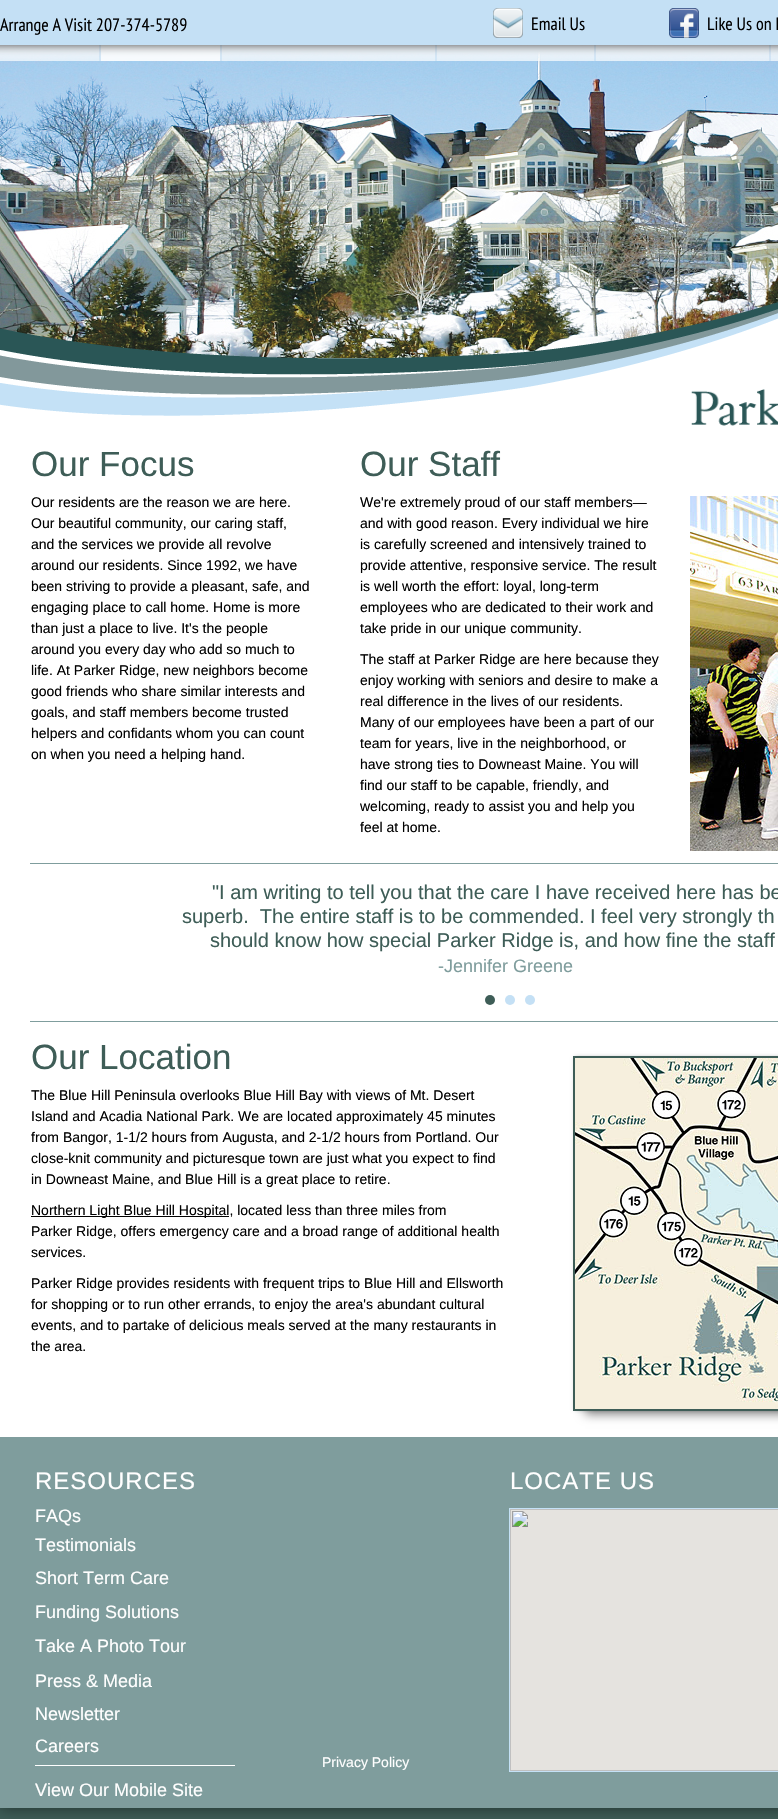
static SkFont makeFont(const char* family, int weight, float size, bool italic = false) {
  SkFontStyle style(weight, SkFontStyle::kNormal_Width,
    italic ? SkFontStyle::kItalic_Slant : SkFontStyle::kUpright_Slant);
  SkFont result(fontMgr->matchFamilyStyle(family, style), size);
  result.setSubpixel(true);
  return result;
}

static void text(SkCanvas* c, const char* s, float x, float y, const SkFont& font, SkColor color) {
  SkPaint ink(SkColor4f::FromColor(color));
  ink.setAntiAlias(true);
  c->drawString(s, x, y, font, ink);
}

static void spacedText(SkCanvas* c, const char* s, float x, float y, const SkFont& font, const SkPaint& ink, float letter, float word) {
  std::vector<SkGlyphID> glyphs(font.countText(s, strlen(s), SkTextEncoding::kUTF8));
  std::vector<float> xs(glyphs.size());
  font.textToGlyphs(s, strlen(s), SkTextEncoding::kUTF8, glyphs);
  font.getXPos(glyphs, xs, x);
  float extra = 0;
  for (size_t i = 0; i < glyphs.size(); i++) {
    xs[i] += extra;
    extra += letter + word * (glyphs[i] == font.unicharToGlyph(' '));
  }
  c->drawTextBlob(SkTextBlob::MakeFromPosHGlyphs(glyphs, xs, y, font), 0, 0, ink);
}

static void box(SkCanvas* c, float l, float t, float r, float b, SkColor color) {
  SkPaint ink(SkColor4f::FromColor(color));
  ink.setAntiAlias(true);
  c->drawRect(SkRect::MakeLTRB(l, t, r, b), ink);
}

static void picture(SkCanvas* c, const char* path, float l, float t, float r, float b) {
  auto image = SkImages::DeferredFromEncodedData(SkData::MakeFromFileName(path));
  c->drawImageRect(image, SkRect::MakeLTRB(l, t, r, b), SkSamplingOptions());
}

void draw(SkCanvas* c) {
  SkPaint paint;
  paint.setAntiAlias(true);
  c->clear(0xff3e5d57);
  paint.setColor(0x80000000);
  paint.setMaskFilter(SkMaskFilter::MakeBlur(kNormal_SkBlurStyle, 7.5f));
  c->drawRect(SkRect::MakeLTRB(0, -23, 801, 1808), paint);
  paint.setMaskFilter(nullptr);
  box(c, 0, 358, 778, 1437, 0xffffffff);
  picture(c, "img_03.png", 0, 45, 778, 358);
  {
    const SkColor colors[] = {0xffffffff, 0x80ffffff};
    const float stops[] = {0, 1};
    const SkPoint ends[] = {{510, 13}, {510, 61}};
    paint.setShader(SkGradientShader::MakeLinear(ends, colors, stops, 2, SkTileMode::kClamp));
    paint.setAlpha(255);
  }
  c->drawRect(SkRect::MakeLTRB(0, 45, 778, 61), paint);
  {
    const SkColor colors[] = {0xffffffff, 0x66ffffff};
    const float stops[] = {0.2f, 1};
    const SkPoint ends[] = {{50, 13}, {50, 61}};
    paint.setShader(SkGradientShader::MakeLinear(ends, colors, stops, 2, SkTileMode::kClamp));
    paint.setAlpha(255);
  }
  c->drawRect(SkRect::MakeLTRB(0, 45, 99, 61), paint);
  {
    const SkColor colors[] = {0xe6ffffff, 0xcfffffff};
    const float stops[] = {0.2f, 1};
    const SkPoint ends[] = {{161, 13}, {161, 61}};
    paint.setShader(SkGradientShader::MakeLinear(ends, colors, stops, 2, SkTileMode::kClamp));
    paint.setAlpha(255);
  }
  c->drawRect(SkRect::MakeLTRB(101, 45, 220, 61), paint);
  {
    const SkColor colors[] = {0xffffffff, 0x66ffffff};
    const float stops[] = {0.2f, 1};
    const SkPoint ends[] = {{329, 13}, {329, 61}};
    paint.setShader(SkGradientShader::MakeLinear(ends, colors, stops, 2, SkTileMode::kClamp));
    paint.setAlpha(255);
  }
  c->drawRect(SkRect::MakeLTRB(222, 45, 435, 61), paint);
  {
    const SkColor colors[] = {0xffffffff, 0x66ffffff};
    const float stops[] = {0.2f, 1};
    const SkPoint ends[] = {{516, 13}, {516, 61}};
    paint.setShader(SkGradientShader::MakeLinear(ends, colors, stops, 2, SkTileMode::kClamp));
    paint.setAlpha(255);
  }
  c->drawRect(SkRect::MakeLTRB(437, 45, 594, 61), paint);
  {
    const SkColor colors[] = {0xffffffff, 0x66ffffff};
    const float stops[] = {0.2f, 1};
    const SkPoint ends[] = {{683, 13}, {683, 61}};
    paint.setShader(SkGradientShader::MakeLinear(ends, colors, stops, 2, SkTileMode::kClamp));
    paint.setAlpha(255);
  }
  c->drawRect(SkRect::MakeLTRB(596, 45, 769, 61), paint);
  {
    const SkColor colors[] = {0xffffffff, 0x66ffffff};
    const float stops[] = {0.2f, 1};
    const SkPoint ends[] = {{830, 13}, {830, 61}};
    paint.setShader(SkGradientShader::MakeLinear(ends, colors, stops, 2, SkTileMode::kClamp));
    paint.setAlpha(255);
  }
  c->drawRect(SkRect::MakeLTRB(771, 45, 778, 61), paint);
  paint.setShader(nullptr);
  paint.setColor(0xbf000000);
  paint.setMaskFilter(SkMaskFilter::MakeBlur(kNormal_SkBlurStyle, 5));
  c->drawRect(SkRect::MakeLTRB(-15, 0, 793, 45), paint);
  paint.setMaskFilter(nullptr);
  box(c, 0, 0, 778, 45, 0xffc4e0f5);
  SkFont face1 = makeFont("PT Sans Narrow", 400, 18);
  text(c, "Arrange A Visit 207-374-5789", 0, 31, face1, 0xff000000);
  picture(c, "img_01.png", 493, 8, 523, 38);
  text(c, "Email Us", 531, 30, face1, 0xff000000);
  picture(c, "img_02.png", 669, 8, 699, 38);
  text(c, "Like Us on F", 707, 30, face1, 0xff000000);
  picture(c, "img_04.png", 0, 302, 778, 416);
  picture(c, "img_05.png", 691, 389, 778, 426);
  SkFont face2 = makeFont("Liberation Sans", 400, 35);
  text(c, "Our Focus", 31, 476, face2, 0xff3e5d57);
  SkFont face3 = makeFont("Liberation Sans", 400, 14);
  text(c, "Our residents are the reason we are here.", 31, 507, face3, 0xff000000);
  text(c, "Our beautiful community, our caring staff,", 31, 528, face3, 0xff000000);
  text(c, "and the services we provide all revolve", 31, 549, face3, 0xff000000);
  text(c, "around our residents. Since 1992, we have", 31, 570, face3, 0xff000000);
  text(c, "been striving to provide a pleasant, safe, and", 31, 591, face3, 0xff000000);
  text(c, "engaging place to call home. Home is more", 31, 612, face3, 0xff000000);
  text(c, "than just a place to live. It's the people", 31, 633, face3, 0xff000000);
  text(c, "around you every day who add so much to", 31, 654, face3, 0xff000000);
  text(c, "life. At Parker Ridge, new neighbors become", 31, 675, face3, 0xff000000);
  text(c, "good friends who share similar interests and", 31, 696, face3, 0xff000000);
  text(c, "goals, and staff members become trusted", 31, 717, face3, 0xff000000);
  text(c, "helpers and confidants whom you can count", 31, 738, face3, 0xff000000);
  text(c, "on when you need a helping hand.", 31, 759, face3, 0xff000000);
  text(c, "Our Staff", 360, 476, face2, 0xff3e5d57);
  text(c, "We're extremely proud of our staff members—", 360, 507, face3, 0xff000000);
  text(c, "and with good reason. Every individual we hire", 360, 528, face3, 0xff000000);
  text(c, "is carefully screened and intensively trained to", 360, 549, face3, 0xff000000);
  text(c, "provide attentive, responsive service. The result", 360, 570, face3, 0xff000000);
  text(c, "is well worth the effort: loyal, long-term", 360, 591, face3, 0xff000000);
  text(c, "employees who are dedicated to their work and", 360, 612, face3, 0xff000000);
  text(c, "take pride in our unique community.", 360, 633, face3, 0xff000000);
  text(c, "The staff at Parker Ridge are here because they", 360, 664, face3, 0xff000000);
  text(c, "enjoy working with seniors and desire to make a", 360, 685, face3, 0xff000000);
  text(c, "real difference in the lives of our residents.", 360, 706, face3, 0xff000000);
  text(c, "Many of our employees have been a part of our", 360, 727, face3, 0xff000000);
  text(c, "team for years, live in the neighborhood, or", 360, 748, face3, 0xff000000);
  text(c, "have strong ties to Downeast Maine. You will", 360, 769, face3, 0xff000000);
  text(c, "find our staff to be capable, friendly, and", 360, 790, face3, 0xff000000);
  text(c, "welcoming, ready to assist you and help you", 360, 811, face3, 0xff000000);
  text(c, "feel at home.", 360, 832, face3, 0xff000000);
  picture(c, "img_06.png", 690, 496, 778, 851);
  box(c, 30, 863, 778, 864, 0xff7f9d9d);
  SkFont face4 = makeFont("Liberation Sans", 400, 20);
  text(c, "\"I am writing to tell you that the care I have received here has be", 212, 899, face4, 0xff3e5d57);
  text(c, "superb.  The entire staff is to be commended. I feel very strongly th", 182, 923, face4, 0xff3e5d57);
  text(c, "should know how special Parker Ridge is, and how fine the staff", 210, 947, face4, 0xff3e5d57);
  SkFont face5 = makeFont("Liberation Sans", 400, 18);
  text(c, "-Jennifer Greene", 438, 972, face5, 0xff7f9d9d);
  paint.setColor(0xff3e5d57);
  c->drawCircle(490, 1000, 5, paint);
  paint.setColor(0xffc4e0f5);
  c->drawCircle(510, 1000, 5, paint);
  c->drawCircle(530, 1000, 5, paint);
  box(c, 30, 1021, 778, 1022, 0xff7f9d9d);
  text(c, "Our Location", 31, 1069, face2, 0xff3e5d57);
  text(c, "The Blue Hill Peninsula overlooks Blue Hill Bay with views of Mt. Desert", 31, 1100, face3, 0xff000000);
  text(c, "Island and Acadia National Park. We are located approximately 45 minutes", 31, 1121, face3, 0xff000000);
  text(c, "from Bangor, 1-1/2 hours from Augusta, and 2-1/2 hours from Portland. Our", 31, 1142, face3, 0xff000000);
  text(c, "close-knit community and picturesque town are just what you expect to find", 31, 1163, face3, 0xff000000);
  text(c, "in Downeast Maine, and Blue Hill is a great place to retire.", 31, 1184, face3, 0xff000000);
  box(c, 31, 1216, 229, 1217, 0xff000000);
  text(c, "Northern Light Blue Hill Hospital, located less than three miles from", 31, 1215, face3, 0xff000000);
  text(c, "Parker Ridge, offers emergency care and a broad range of additional health", 31, 1236, face3, 0xff000000);
  text(c, "services.", 31, 1257, face3, 0xff000000);
  text(c, "Parker Ridge provides residents with frequent trips to Blue Hill and Ellsworth", 31, 1288, face3, 0xff000000);
  text(c, "for shopping or to run other errands, to enjoy the area's abundant cultural", 31, 1309, face3, 0xff000000);
  text(c, "events, and to partake of delicious meals served at the many restaurants in", 31, 1330, face3, 0xff000000);
  text(c, "the area.", 31, 1351, face3, 0xff000000);
  paint.setColor(0x4d000000);
  paint.setMaskFilter(SkMaskFilter::MakeBlur(kNormal_SkBlurStyle, 2));
  c->drawRect(SkRect::MakeLTRB(575, 1057, 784, 1410), paint);
  paint.setMaskFilter(nullptr);
  paint.setColor(0x80000000);
  paint.setMaskFilter(SkMaskFilter::MakeBlur(kNormal_SkBlurStyle, 5));
  c->drawRect(SkRect::MakeLTRB(585, 1081, 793, 1414), paint);
  paint.setMaskFilter(nullptr);
  paint.setStyle(SkPaint::kStroke_Style);
  paint.setStrokeWidth(2);
  paint.setColor(0xff3e5d57);
  c->drawRect(SkRect::MakeLTRB(574, 1057, 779, 1410), paint);
  picture(c, "img_07.png", 575, 1058, 778, 1409);
  box(c, 0, 1437, 778, 1808, 0xff7f9d9d);
  SkFont face6 = makeFont("Liberation Sans", 400, 24);
  paint.setStyle(SkPaint::kFill_Style);
  paint.setColor(0xffffffff);
  spacedText(c, "RESOURCES", 35, 1489, face6, paint, 1, 0);
  text(c, "FAQs", 35, 1522, face5, 0xffffffff);
  text(c, "Testimonials", 35, 1551, face5, 0xffffffff);
  text(c, "Short Term Care", 35, 1584, face5, 0xffffffff);
  text(c, "Funding Solutions", 35, 1618, face5, 0xffffffff);
  text(c, "Take A Photo Tour", 35, 1652, face5, 0xffffffff);
  text(c, "Press & Media", 35, 1687, face5, 0xffffffff);
  text(c, "Newsletter", 35, 1720, face5, 0xffffffff);
  text(c, "Careers", 35, 1752, face5, 0xffffffff);
  box(c, 35, 1765, 235, 1766, 0xffffffff);
  text(c, "View Our Mobile Site", 35, 1796, face5, 0xffffffff);
  spacedText(c, "LOCATE US", 510, 1489, face6, paint, 1, 0);
  text(c, "Privacy Policy", 322, 1767, face3, 0xffffffff);
  paint.setStyle(SkPaint::kStroke_Style);
  paint.setStrokeWidth(1);
  paint.setColor(0xffc4e1f6);
  c->drawRect(SkRect::MakeLTRB(509.5f, 1508.5f, 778.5f, 1771.5f), paint);
  picture(c, "img_08.png", 510, 1509, 778, 1771);
}
